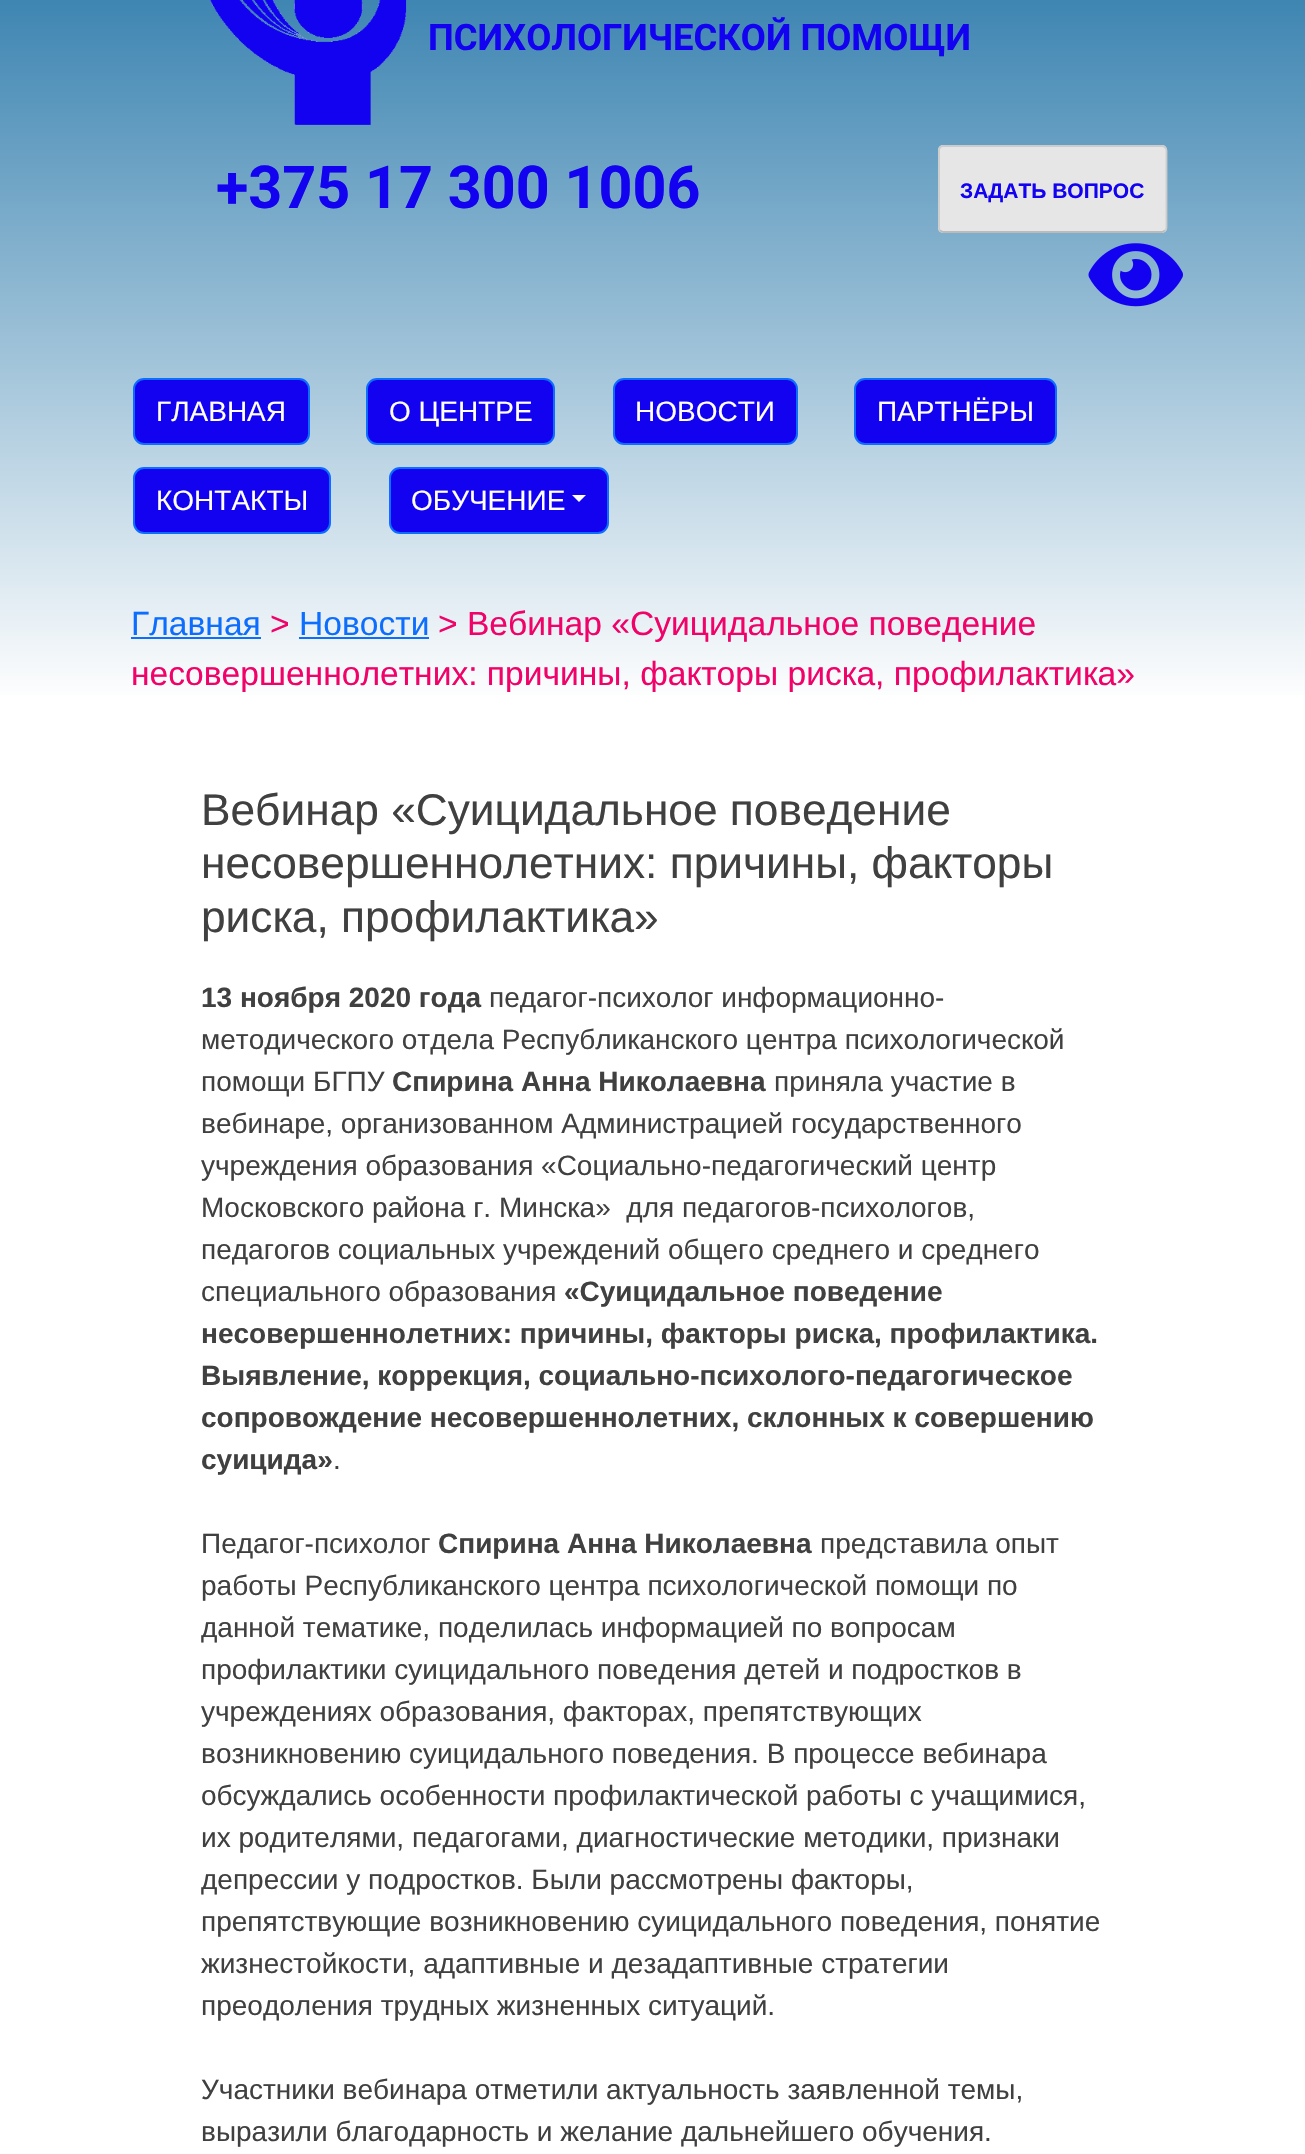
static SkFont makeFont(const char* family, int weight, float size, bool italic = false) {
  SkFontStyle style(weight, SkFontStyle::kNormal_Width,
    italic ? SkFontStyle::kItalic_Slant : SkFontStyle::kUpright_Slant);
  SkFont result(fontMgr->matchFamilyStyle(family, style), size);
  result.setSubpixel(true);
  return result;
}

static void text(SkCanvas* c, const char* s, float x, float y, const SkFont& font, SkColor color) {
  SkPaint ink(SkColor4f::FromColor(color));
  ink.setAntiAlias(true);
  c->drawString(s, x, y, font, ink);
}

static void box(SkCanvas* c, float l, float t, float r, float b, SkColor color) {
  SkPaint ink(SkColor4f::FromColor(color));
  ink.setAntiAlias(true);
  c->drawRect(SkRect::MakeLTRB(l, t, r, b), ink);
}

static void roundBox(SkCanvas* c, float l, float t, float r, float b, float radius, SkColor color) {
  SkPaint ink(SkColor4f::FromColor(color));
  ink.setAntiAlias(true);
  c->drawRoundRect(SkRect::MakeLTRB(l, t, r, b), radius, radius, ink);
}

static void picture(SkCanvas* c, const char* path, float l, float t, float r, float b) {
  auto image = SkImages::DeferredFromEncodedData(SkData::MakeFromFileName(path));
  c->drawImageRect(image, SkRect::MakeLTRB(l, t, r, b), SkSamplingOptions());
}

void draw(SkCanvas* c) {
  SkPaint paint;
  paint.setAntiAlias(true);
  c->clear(0xffffffff);
  {
    const SkColor colors[] = {0xff2c7aab, 0xfffefefe};
    const float stops[] = {0, 1};
    const SkPoint ends[] = {{653, -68}, {653, 700}};
    paint.setShader(SkGradientShader::MakeLinear(ends, colors, stops, 2, SkTileMode::kClamp));
    paint.setAlpha(255);
  }
  c->drawRect(SkRect::MakeLTRB(0, 0, 1305, 695), paint);
  picture(c, "img_01.png", 210, 0, 407, 125);
  SkFont face1 = makeFont("Roboto", 700, 36.4f);
  text(c, "ПСИХОЛОГИЧЕСКОЙ ПОМОЩИ", 428, 50, face1, 0xff1302f0);
  SkFont face2 = makeFont("Roboto", 700, 59.25f);
  text(c, "+375 17 300 1006", 216, 208, face2, 0xff1302f0);
  roundBox(c, 938, 145, 1167, 233, 5, 0xffe6e6e6);
  paint.setStyle(SkPaint::kStroke_Style);
  paint.setStrokeWidth(1.8f);
  paint.setShader(nullptr);
  paint.setColor(0xffbbbbbb);
  c->drawPath(SkPathBuilder().moveTo(1165, 230.5f).lineTo(1162, 232).lineTo(943, 232).lineTo(940, 230.5f).detach(), paint);
  paint.setColor(0xffcccccc);
  c->drawPath(SkPathBuilder().moveTo(940, 230.5f).cubicTo(939.5f, 230, 939, 228.5f, 939, 227.5f).lineTo(939, 150.5f).cubicTo(939, 149.5f, 939.5f, 148, 940, 147.5f).cubicTo(941, 146.5f, 942, 146, 943, 146).lineTo(1162, 146).cubicTo(1163, 146, 1164.5f, 146.5f, 1165, 147.5f).cubicTo(1166, 148, 1166.5f, 149.5f, 1166.5f, 150.5f).lineTo(1166.5f, 227.5f).cubicTo(1166.5f, 228.5f, 1166, 230, 1165, 230.5f).detach(), paint);
  SkFont face3 = makeFont("Liberation Sans", 700, 21);
  text(c, "ЗАДАТЬ ВОПРОС", 960, 198, face3, 0xff1302f0);
  picture(c, "img_02.png", 1088, 243, 1183, 307);
  paint.setStyle(SkPaint::kFill_Style);
  paint.setColor(0xff1302f0);
  c->drawRoundRect(SkRect::MakeLTRB(134, 379, 309, 444), 10, 10, paint);
  paint.setStyle(SkPaint::kStroke_Style);
  paint.setStrokeWidth(2);
  paint.setColor(0xff0d6efd);
  c->drawRoundRect(SkRect::MakeLTRB(134, 379, 309, 444), 10, 10, paint);
  SkFont face4 = makeFont("Liberation Sans", 400, 28);
  text(c, "ГЛАВНАЯ", 156, 421, face4, 0xffffffff);
  paint.setStyle(SkPaint::kFill_Style);
  paint.setColor(0xff1302f0);
  c->drawRoundRect(SkRect::MakeLTRB(367, 379, 554, 444), 10, 10, paint);
  paint.setStyle(SkPaint::kStroke_Style);
  paint.setColor(0xff0d6efd);
  c->drawRoundRect(SkRect::MakeLTRB(367, 379, 554, 444), 10, 10, paint);
  text(c, "О ЦЕНТРЕ", 389, 421, face4, 0xffffffff);
  paint.setStyle(SkPaint::kFill_Style);
  paint.setColor(0xff1302f0);
  c->drawRoundRect(SkRect::MakeLTRB(614, 379, 797, 444), 10, 10, paint);
  paint.setStyle(SkPaint::kStroke_Style);
  paint.setColor(0xff0d6efd);
  c->drawRoundRect(SkRect::MakeLTRB(614, 379, 797, 444), 10, 10, paint);
  text(c, "НОВОСТИ", 635, 421, face4, 0xffffffff);
  paint.setStyle(SkPaint::kFill_Style);
  paint.setColor(0xff1302f0);
  c->drawRoundRect(SkRect::MakeLTRB(855, 379, 1056, 444), 10, 10, paint);
  paint.setStyle(SkPaint::kStroke_Style);
  paint.setColor(0xff0d6efd);
  c->drawRoundRect(SkRect::MakeLTRB(855, 379, 1056, 444), 10, 10, paint);
  text(c, "ПАРТНЁРЫ", 877, 421, face4, 0xffffffff);
  paint.setStyle(SkPaint::kFill_Style);
  paint.setColor(0xff1302f0);
  c->drawRoundRect(SkRect::MakeLTRB(134, 468, 330, 533), 10, 10, paint);
  paint.setStyle(SkPaint::kStroke_Style);
  paint.setColor(0xff0d6efd);
  c->drawRoundRect(SkRect::MakeLTRB(134, 468, 330, 533), 10, 10, paint);
  text(c, "КОНТАКТЫ", 156, 510, face4, 0xffffffff);
  paint.setStyle(SkPaint::kFill_Style);
  paint.setColor(0xff1302f0);
  c->drawRoundRect(SkRect::MakeLTRB(390, 468, 608, 533), 10, 10, paint);
  paint.setStyle(SkPaint::kStroke_Style);
  paint.setColor(0xff0d6efd);
  c->drawRoundRect(SkRect::MakeLTRB(390, 468, 608, 533), 10, 10, paint);
  text(c, "ОБУЧЕНИЕ", 411, 510, face4, 0xffffffff);
  paint.setStyle(SkPaint::kFill_Style);
  paint.setColor(0xffffffff);
  c->drawPath(SkPathBuilder().moveTo(572, 495).lineTo(586, 495).lineTo(579, 502).close().detach(), paint);
  SkFont face5 = makeFont("Liberation Sans", 400, 33.6f);
  text(c, "Главная", 131, 635, face5, 0xff0d6efd);
  box(c, 131, 637, 261, 639, 0xff0d6efd);
  text(c, ">", 270, 635, face5, 0xfff00269);
  text(c, "Новости", 299, 635, face5, 0xff0d6efd);
  box(c, 299, 637, 429, 639, 0xff0d6efd);
  text(c, "> Вебинар «Суицидальное поведение", 438, 635, face5, 0xfff00269);
  text(c, "несовершеннолетних: причины, факторы риска, профилактика»", 131, 685, face5, 0xfff00269);
  SkFont face6 = makeFont("Liberation Sans", 400, 44.25f);
  text(c, "Вебинар «Суицидальное поведение", 201, 825, face6, 0xff404040);
  text(c, "несовершеннолетних: причины, факторы", 201, 878, face6, 0xff404040);
  text(c, "риска, профилактика»", 201, 932, face6, 0xff404040);
  SkFont face7 = makeFont("Liberation Sans", 700, 28);
  text(c, "13 ноября 2020 года", 201, 1007, face7, 0xff404040);
  text(c, "педагог-психолог информационно-", 489, 1007, face4, 0xff404040);
  text(c, "методического отдела Республиканского центра психологической", 201, 1049, face4, 0xff404040);
  text(c, "помощи БГПУ", 201, 1091, face4, 0xff404040);
  text(c, "Спирина Анна Николаевна", 392, 1091, face7, 0xff404040);
  text(c, "приняла участие в", 774, 1091, face4, 0xff404040);
  text(c, "вебинаре, организованном Администрацией государственного", 201, 1133, face4, 0xff404040);
  text(c, "учреждения образования «Социально-педагогический центр", 201, 1175, face4, 0xff404040);
  text(c, "Московского района г. Минска»  для педагогов-психологов,", 201, 1217, face4, 0xff404040);
  text(c, "педагогов социальных учреждений общего среднего и среднего", 201, 1259, face4, 0xff404040);
  text(c, "специального образования", 201, 1301, face4, 0xff404040);
  text(c, "«Суицидальное поведение", 564, 1301, face7, 0xff404040);
  text(c, "несовершеннолетних: причины, факторы риска, профилактика.", 201, 1343, face7, 0xff404040);
  text(c, "Выявление, коррекция, социально-психолого-педагогическое", 201, 1385, face7, 0xff404040);
  text(c, "сопровождение несовершеннолетних, склонных к совершению", 201, 1427, face7, 0xff404040);
  text(c, "суицида»", 201, 1469, face7, 0xff404040);
  text(c, ".", 333, 1469, face4, 0xff404040);
  text(c, "Педагог-психолог", 201, 1553, face4, 0xff404040);
  text(c, "Спирина Анна Николаевна", 438, 1553, face7, 0xff404040);
  text(c, "представила опыт", 820, 1553, face4, 0xff404040);
  text(c, "работы Республиканского центра психологической помощи по", 201, 1595, face4, 0xff404040);
  text(c, "данной тематике, поделилась информацией по вопросам", 201, 1637, face4, 0xff404040);
  text(c, "профилактики суицидального поведения детей и подростков в", 201, 1679, face4, 0xff404040);
  text(c, "учреждениях образования, факторах, препятствующих", 201, 1721, face4, 0xff404040);
  text(c, "возникновению суицидального поведения. В процессе вебинара", 201, 1763, face4, 0xff404040);
  text(c, "обсуждались особенности профилактической работы с учащимися,", 201, 1805, face4, 0xff404040);
  text(c, "их родителями, педагогами, диагностические методики, признаки", 201, 1847, face4, 0xff404040);
  text(c, "депрессии у подростков. Были рассмотрены факторы,", 201, 1889, face4, 0xff404040);
  text(c, "препятствующие возникновению суицидального поведения, понятие", 201, 1931, face4, 0xff404040);
  text(c, "жизнестойкости, адаптивные и дезадаптивные стратегии", 201, 1973, face4, 0xff404040);
  text(c, "преодоления трудных жизненных ситуаций.", 201, 2015, face4, 0xff404040);
  text(c, "Участники вебинара отметили актуальность заявленной темы,", 201, 2099, face4, 0xff404040);
  text(c, "выразили благодарность и желание дальнейшего обучения.", 201, 2141, face4, 0xff404040);
}
